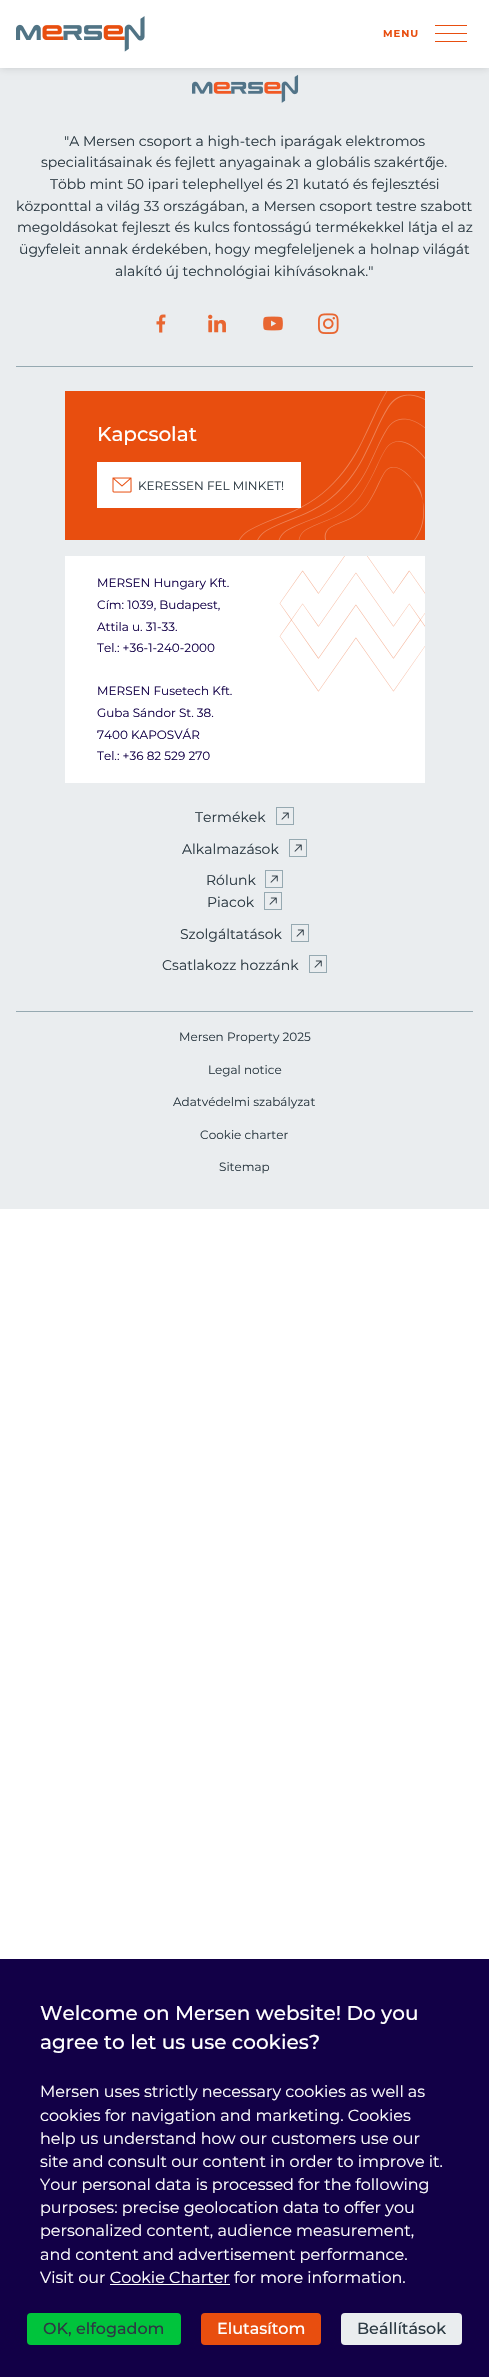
static SkFont makeFont(const char* family, int weight, float size, bool italic = false) {
  SkFontStyle style(weight, SkFontStyle::kNormal_Width,
    italic ? SkFontStyle::kItalic_Slant : SkFontStyle::kUpright_Slant);
  SkFont result(fontMgr->matchFamilyStyle(family, style), size);
  result.setSubpixel(true);
  return result;
}

static void text(SkCanvas* c, const char* s, float x, float y, const SkFont& font, SkColor color) {
  SkPaint ink(SkColor4f::FromColor(color));
  ink.setAntiAlias(true);
  c->drawString(s, x, y, font, ink);
}

static void spacedText(SkCanvas* c, const char* s, float x, float y, const SkFont& font, const SkPaint& ink, float letter, float word) {
  std::vector<SkGlyphID> glyphs(font.countText(s, strlen(s), SkTextEncoding::kUTF8));
  std::vector<float> xs(glyphs.size());
  font.textToGlyphs(s, strlen(s), SkTextEncoding::kUTF8, glyphs);
  font.getXPos(glyphs, xs, x);
  float extra = 0;
  for (size_t i = 0; i < glyphs.size(); i++) {
    xs[i] += extra;
    extra += letter + word * (glyphs[i] == font.unicharToGlyph(' '));
  }
  c->drawTextBlob(SkTextBlob::MakeFromPosHGlyphs(glyphs, xs, y, font), 0, 0, ink);
}

static void box(SkCanvas* c, float l, float t, float r, float b, SkColor color) {
  SkPaint ink(SkColor4f::FromColor(color));
  ink.setAntiAlias(true);
  c->drawRect(SkRect::MakeLTRB(l, t, r, b), ink);
}

static void roundBox(SkCanvas* c, float l, float t, float r, float b, float radius, SkColor color) {
  SkPaint ink(SkColor4f::FromColor(color));
  ink.setAntiAlias(true);
  c->drawRoundRect(SkRect::MakeLTRB(l, t, r, b), radius, radius, ink);
}

static void picture(SkCanvas* c, const char* path, float l, float t, float r, float b) {
  auto image = SkImages::DeferredFromEncodedData(SkData::MakeFromFileName(path));
  c->drawImageRect(image, SkRect::MakeLTRB(l, t, r, b), SkSamplingOptions());
}

void draw(SkCanvas* c) {
  SkPaint paint;
  paint.setAntiAlias(true);
  c->clear(0xffffffff);
  box(c, 0, 68, 489, 1209, 0xffeaedef);
  picture(c, "img_02.png", 192, 74, 299, 103);
  paint.setColor(0x26000000);
  paint.setMaskFilter(SkMaskFilter::MakeBlur(kNormal_SkBlurStyle, 4));
  c->drawRect(SkRect::MakeLTRB(0, 0, 489, 68), paint);
  paint.setMaskFilter(nullptr);
  box(c, 0, 0, 489, 68, 0xffffffff);
  picture(c, "img_01.png", 16, 16, 145, 52);
  SkFont face1 = makeFont("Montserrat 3", 100, 10);
  paint.setColor(0xffe84e0f);
  spacedText(c, "MENU", 383, 37, face1, paint, 1, 0);
  box(c, 435, 25, 467, 26, 0xffe84e0f);
  box(c, 435, 33, 467, 34, 0xffe84e0f);
  box(c, 435, 41, 467, 42, 0xffe84e0f);
  box(c, 16, 366, 473, 367, 0xff96a9b1);
  SkFont face2 = makeFont("Montserrat", 100, 14);
  text(c, "\"A Mersen csoport a high-tech iparágak elektromos", 64, 146, face2, 0xff2c3a43);
  text(c, "specialitásainak és fejlett anyagainak a globális szakért", 41, 167, face2, 0xff2c3a43);
  SkFont face3 = makeFont("Liberation Sans", 400, 14);
  text(c, "ő", 425, 167, face3, 0xff2c3a43);
  text(c, "je.", 432, 167, face2, 0xff2c3a43);
  text(c, "Több mint 50 ipari telephellyel és 21 kutató és fejlesztési", 50, 189, face2, 0xff2c3a43);
  text(c, "központtal a világ 33 országában, a Mersen csoport testre szabott", 16, 211, face2, 0xff2c3a43);
  text(c, "megoldásokat fejleszt és kulcs fontosságú termékekkel látja el az", 17, 232, face2, 0xff2c3a43);
  text(c, "ügyfeleit annak érdekében, hogy megfeleljenek a holnap világát", 19, 254, face2, 0xff2c3a43);
  text(c, "alakító új technológiai kihívásoknak.\"", 115, 276, face2, 0xff2c3a43);
  picture(c, "img_03.png", 156, 314, 166, 333);
  picture(c, "img_04.png", 208, 314, 226, 333);
  picture(c, "img_05.png", 263, 316, 283, 331);
  picture(c, "img_06.png", 318, 313, 339, 334);
  box(c, 65, 391, 425, 540, 0xffe84e0f);
  SkFont face4 = makeFont("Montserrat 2", 100, 20);
  text(c, "Kapcsolat", 97, 441, face4, 0xffffffff);
  box(c, 97, 462, 301, 508, 0xffffffff);
  SkFont face5 = makeFont("Montserrat", 100, 12);
  text(c, "KERESSEN FEL MINKET!", 138, 490, face5, 0xff2c3a43);
  picture(c, "img_07.png", 239, 391, 425, 540);
  picture(c, "img_08.png", 112, 477, 132, 493);
  box(c, 65, 556, 425, 783, 0xffffffff);
  text(c, "MERSEN Hungary Kft.", 97, 587, face5, 0xff120047);
  text(c, "Cím: 1039, Budapest,", 97, 609, face5, 0xff120047);
  text(c, "Attila u. 31-33.", 97, 631, face5, 0xff120047);
  text(c, "Tel.: +36-1-240-2000", 97, 652, face5, 0xff120047);
  text(c, "MERSEN Fusetech Kft.", 97, 695, face5, 0xff120047);
  text(c, "Guba Sándor St. 38.", 97, 717, face5, 0xff120047);
  text(c, "7400 KAPOSVÁR", 97, 739, face5, 0xff120047);
  text(c, "Tel.: +36 82 529 270", 97, 760, face5, 0xff120047);
  picture(c, "img_09.png", 279, 556, 425, 692);
  box(c, 16, 1011, 473, 1012, 0xff96a9b1);
  text(c, "Termékek", 195, 822, face2, 0xff2c3a43);
  paint.setStyle(SkPaint::kStroke_Style);
  paint.setStrokeWidth(1);
  paint.setColor(0xff96a9b1);
  c->drawRect(SkRect::MakeLTRB(276.5f, 807.5f, 293.5f, 824.5f), paint);
  picture(c, "img_10.png", 281, 812, 289, 820);
  text(c, "Alkalmazások", 182, 854, face2, 0xff2c3a43);
  c->drawRect(SkRect::MakeLTRB(289.5f, 839.5f, 306.5f, 856.5f), paint);
  picture(c, "img_10.png", 294, 844, 302, 852);
  text(c, "Rólunk", 206, 885, face2, 0xff2c3a43);
  c->drawRect(SkRect::MakeLTRB(265.5f, 870.5f, 282.5f, 887.5f), paint);
  picture(c, "img_10.png", 270, 875, 278, 883);
  text(c, "Piacok", 207, 907, face2, 0xff2c3a43);
  c->drawRect(SkRect::MakeLTRB(264.5f, 892.5f, 281.5f, 909.5f), paint);
  picture(c, "img_10.png", 269, 897, 277, 905);
  text(c, "Szolgáltatások", 180, 939, face2, 0xff2c3a43);
  c->drawRect(SkRect::MakeLTRB(291.5f, 924.5f, 308.5f, 941.5f), paint);
  picture(c, "img_10.png", 296, 929, 304, 937);
  text(c, "Csatlakozz hozzánk", 162, 970, face2, 0xff2c3a43);
  c->drawRect(SkRect::MakeLTRB(309.5f, 955.5f, 326.5f, 972.5f), paint);
  picture(c, "img_10.png", 314, 960, 322, 968);
  text(c, "Mersen Property 2025", 179, 1041, face5, 0xff2c3a43);
  text(c, "Legal notice", 208, 1074, face5, 0xff2c3a43);
  text(c, "Adatvédelmi szabályzat", 173, 1106, face5, 0xff2c3a43);
  text(c, "Cookie charter", 200, 1139, face5, 0xff2c3a43);
  text(c, "Sitemap", 219, 1171, face5, 0xff2c3a43);
  box(c, 0, 1959, 489, 2377, 0xff120047);
  text(c, "Welcome on Mersen website! Do you", 40, 2020, face4, 0xffffffff);
  text(c, "agree to let us use cookies?", 40, 2049, face4, 0xffffffff);
  SkFont face6 = makeFont("Montserrat", 100, 16);
  text(c, "Mersen uses strictly necessary cookies as well as", 40, 2097, face6, 0xffffffff);
  text(c, "cookies for navigation and marketing. Cookies", 40, 2121, face6, 0xffffffff);
  text(c, "help us understand how our customers use our", 40, 2144, face6, 0xffffffff);
  text(c, "site and consult our content in order to improve it.", 40, 2167, face6, 0xffffffff);
  text(c, "Your personal data is processed for the following", 40, 2190, face6, 0xffffffff);
  text(c, "purposes: precise geolocation data to offer you", 40, 2213, face6, 0xffffffff);
  text(c, "personalized content, audience measurement,", 40, 2236, face6, 0xffffffff);
  text(c, "and content and advertisement performance.", 40, 2260, face6, 0xffffffff);
  text(c, "Visit our Cookie Charter for more information.", 40, 2283, face6, 0xffffffff);
  box(c, 110, 2284, 230, 2285, 0xffffffff);
  roundBox(c, 27, 2313, 181, 2345, 4, 0xff00c43c);
  SkFont face7 = makeFont("Montserrat 2", 100, 16);
  text(c, "OK, elfogadom", 43, 2334, face7, 0xff2c3a43);
  roundBox(c, 201, 2313, 321, 2345, 4, 0xffe84e0f);
  text(c, "Elutasítom", 217, 2334, face7, 0xffffffff);
  roundBox(c, 341, 2313, 462, 2345, 4, 0xffeaedef);
  text(c, "Beállítások", 357, 2334, face7, 0xff2c3a43);
}
